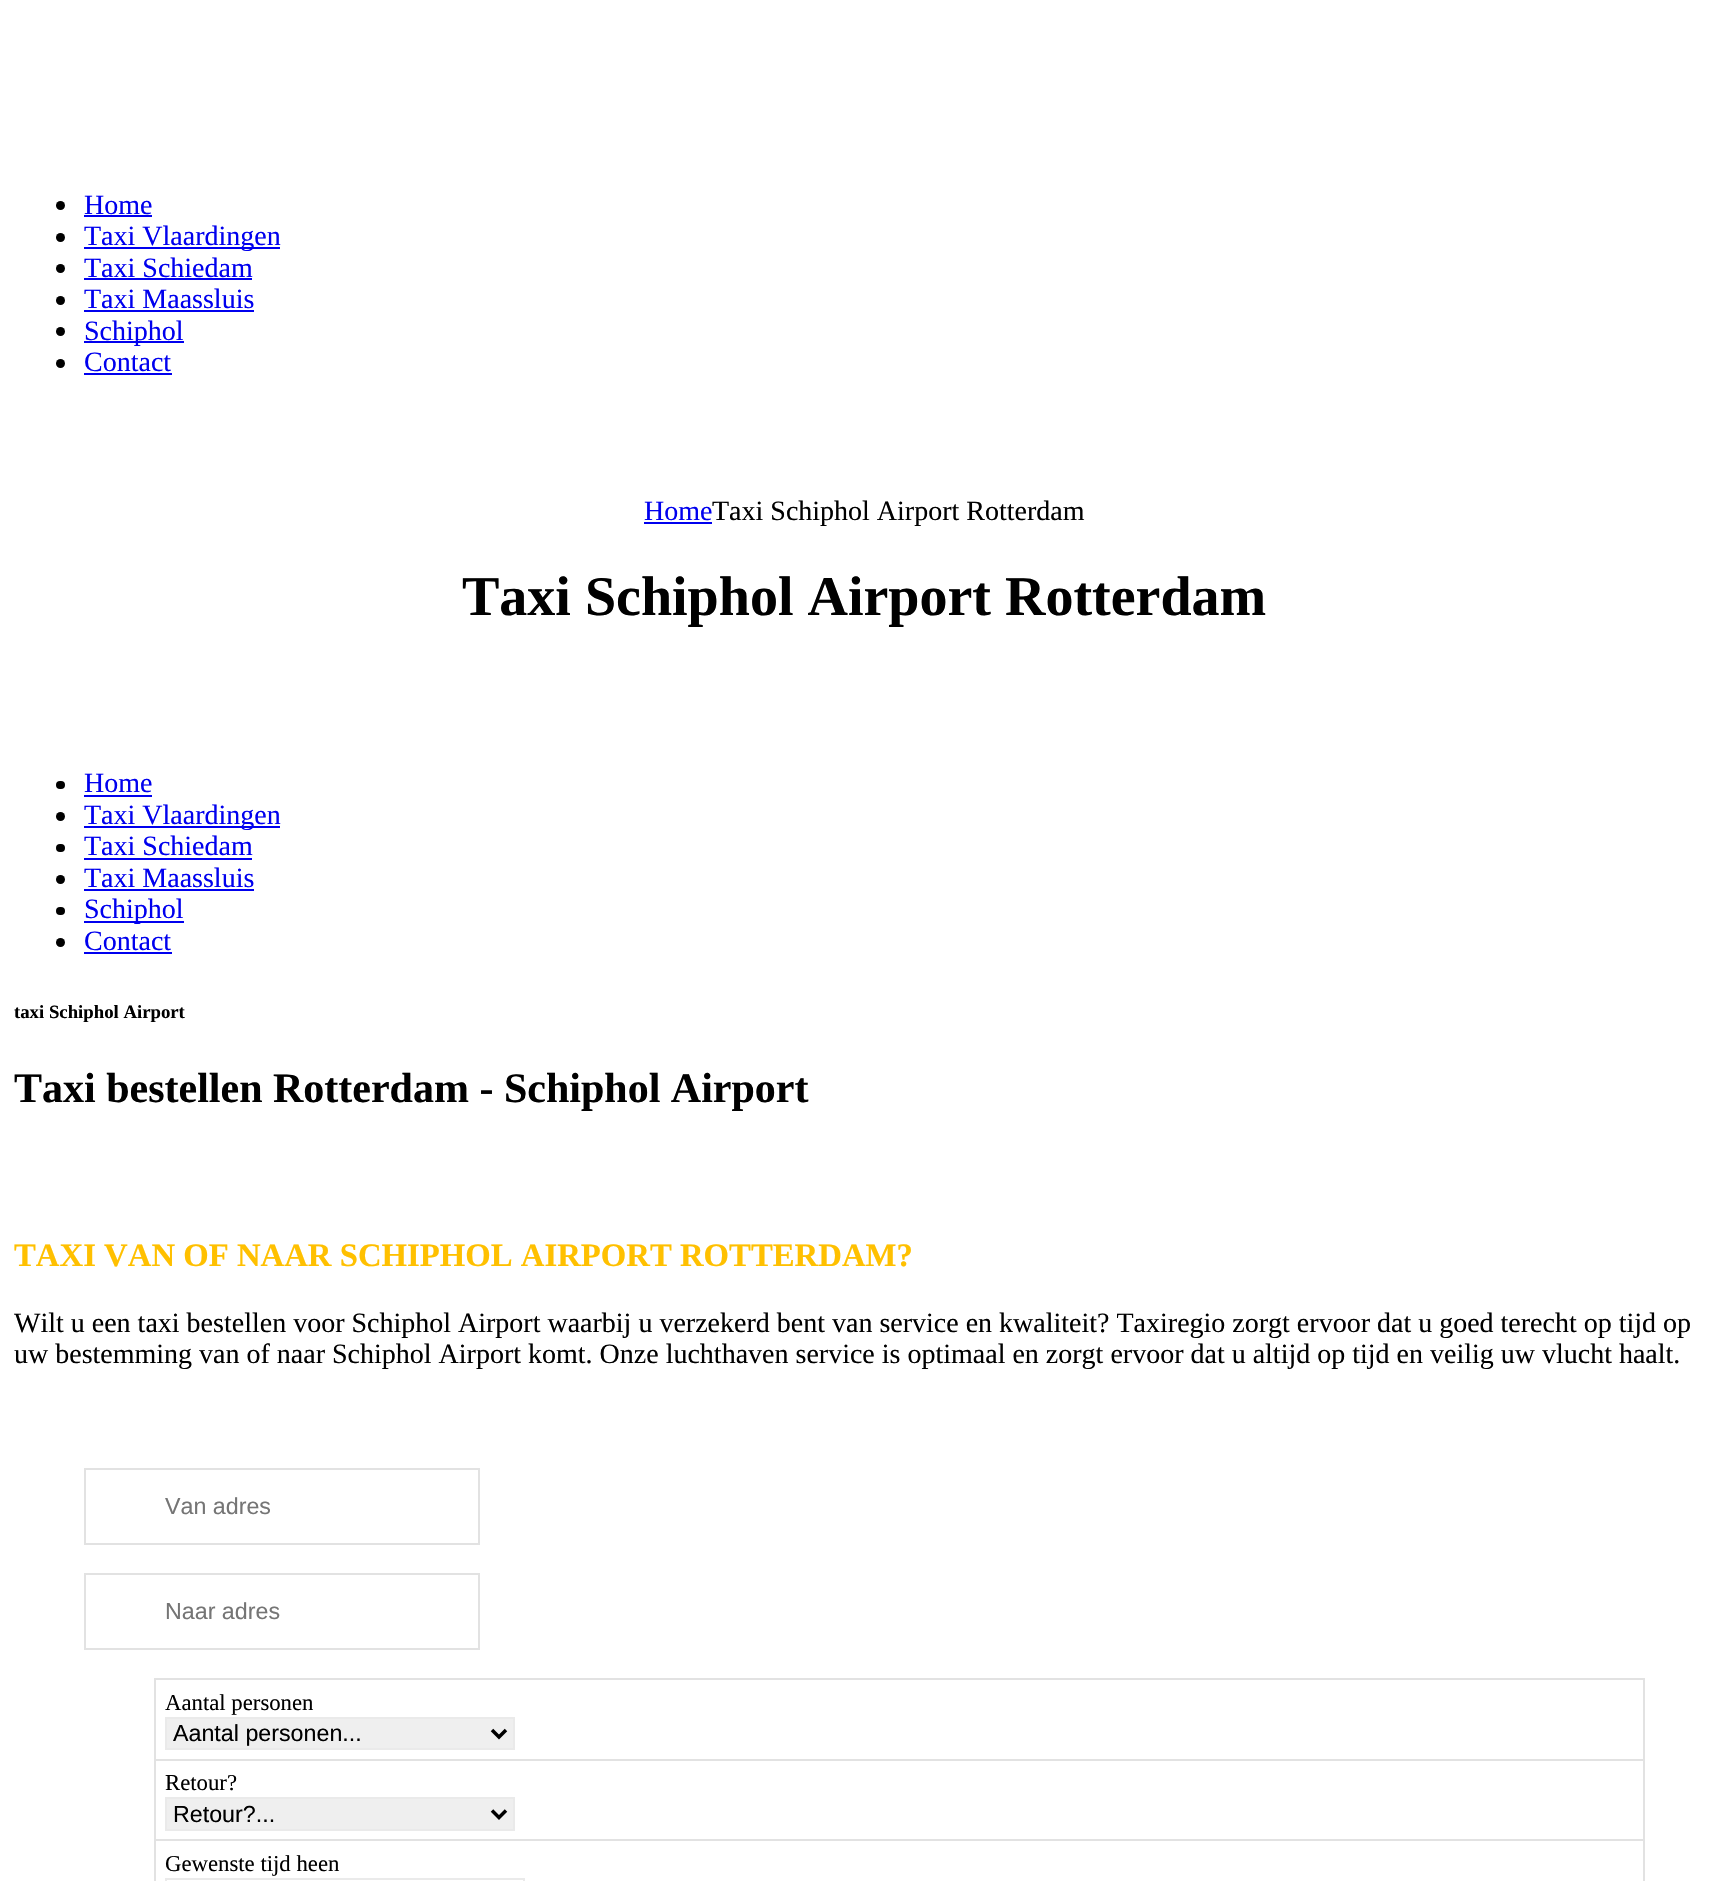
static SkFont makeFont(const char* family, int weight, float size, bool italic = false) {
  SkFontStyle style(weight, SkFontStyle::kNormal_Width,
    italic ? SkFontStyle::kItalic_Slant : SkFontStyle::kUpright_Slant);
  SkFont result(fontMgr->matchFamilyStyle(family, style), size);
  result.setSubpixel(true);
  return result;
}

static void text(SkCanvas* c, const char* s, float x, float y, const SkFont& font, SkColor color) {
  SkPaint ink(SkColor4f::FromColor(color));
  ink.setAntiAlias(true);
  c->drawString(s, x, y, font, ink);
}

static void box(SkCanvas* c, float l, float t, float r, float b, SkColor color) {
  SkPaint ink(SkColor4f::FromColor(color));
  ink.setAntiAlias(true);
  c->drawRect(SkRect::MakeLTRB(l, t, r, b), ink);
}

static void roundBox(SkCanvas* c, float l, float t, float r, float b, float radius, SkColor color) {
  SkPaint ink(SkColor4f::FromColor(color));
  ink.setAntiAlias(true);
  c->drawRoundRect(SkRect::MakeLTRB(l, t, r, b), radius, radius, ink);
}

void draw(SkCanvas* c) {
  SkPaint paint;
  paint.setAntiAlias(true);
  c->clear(0xffffffff);
  paint.setColor(0xff000000);
  c->drawCircle(60.5f, 205.5f, 4.5f, paint);
  SkFont face1 = makeFont("Liberation Serif", 400, 28);
  text(c, "Home", 84, 214, face1, 0xff0000ee);
  box(c, 84, 215, 152, 217, 0xff0000ee);
  c->drawCircle(60.5f, 237.5f, 4.5f, paint);
  box(c, 84, 247, 280, 249, 0xff0000ee);
  text(c, "Taxi Vlaardingen", 84, 245, face1, 0xff0000ee);
  c->drawCircle(60.5f, 268.5f, 4.5f, paint);
  text(c, "Taxi Schiedam", 84, 277, face1, 0xff0000ee);
  box(c, 84, 278, 252, 280, 0xff0000ee);
  c->drawCircle(60.5f, 300.5f, 4.5f, paint);
  text(c, "Taxi Maassluis", 84, 308, face1, 0xff0000ee);
  box(c, 84, 310, 254, 312, 0xff0000ee);
  c->drawCircle(60.5f, 331.5f, 4.5f, paint);
  box(c, 84, 341, 184, 343, 0xff0000ee);
  text(c, "Schiphol", 84, 340, face1, 0xff0000ee);
  c->drawCircle(60.5f, 363.5f, 4.5f, paint);
  text(c, "Contact", 84, 371, face1, 0xff0000ee);
  box(c, 84, 373, 172, 375, 0xff0000ee);
  text(c, "Home", 644, 520, face1, 0xff0000ee);
  box(c, 644, 522, 712, 524, 0xff0000ee);
  text(c, "Taxi Schiphol Airport Rotterdam", 712, 520, face1, 0xff000000);
  SkFont face2 = makeFont("Liberation Serif", 700, 56);
  text(c, "Taxi Schiphol Airport Rotterdam", 462, 615, face2, 0xff000000);
  roundBox(c, 56, 781, 65, 789, 4, 0xff000000);
  text(c, "Home", 84, 792, face1, 0xff0000ee);
  box(c, 84, 795, 152, 797, 0xff0000ee);
  c->drawCircle(60.5f, 816.5f, 4.5f, paint);
  box(c, 84, 826, 280, 828, 0xff0000ee);
  text(c, "Taxi Vlaardingen", 84, 824, face1, 0xff0000ee);
  roundBox(c, 56, 844, 65, 852, 4, 0xff000000);
  text(c, "Taxi Schiedam", 84, 855, face1, 0xff0000ee);
  box(c, 84, 858, 252, 860, 0xff0000ee);
  c->drawCircle(60.5f, 879.5f, 4.5f, paint);
  text(c, "Taxi Maassluis", 84, 887, face1, 0xff0000ee);
  box(c, 84, 889, 254, 891, 0xff0000ee);
  roundBox(c, 56, 907, 65, 915, 4, 0xff000000);
  box(c, 84, 921, 184, 923, 0xff0000ee);
  text(c, "Schiphol", 84, 918, face1, 0xff0000ee);
  c->drawCircle(60.5f, 942.5f, 4.5f, paint);
  text(c, "Contact", 84, 950, face1, 0xff0000ee);
  box(c, 84, 952, 172, 954, 0xff0000ee);
  SkFont face3 = makeFont("Liberation Serif", 700, 18.75f);
  text(c, "taxi Schiphol Airport", 14, 1018, face3, 0xff000000);
  SkFont face4 = makeFont("Liberation Serif", 700, 42);
  text(c, "Taxi bestellen Rotterdam - Schiphol Airport", 14, 1102, face4, 0xff000000);
  SkFont face5 = makeFont("Liberation Serif", 700, 32.75f);
  text(c, "TAXI VAN OF NAAR SCHIPHOL AIRPORT ROTTERDAM?", 14, 1266, face5, 0xffffc000);
  text(c, "Wilt u een taxi bestellen voor Schiphol Airport waarbij u verzekerd bent van service en kwaliteit? Taxiregio zorgt ervoor dat u goed terecht op tijd op", 14, 1332, face1, 0xff000000);
  text(c, "uw bestemming van of naar Schiphol Airport komt. Onze luchthaven service is optimaal en zorgt ervoor dat u altijd op tijd en veilig uw vlucht haalt.", 14, 1363, face1, 0xff000000);
  paint.setStyle(SkPaint::kStroke_Style);
  paint.setStrokeWidth(2);
  paint.setColor(0xffe2e2e2);
  c->drawRect(SkRect::MakeLTRB(85, 1469, 479, 1544), paint);
  SkFont face6 = makeFont("Liberation Sans", 400, 23.25f);
  text(c, "Van adres", 165, 1514, face6, 0xff757575);
  c->drawRect(SkRect::MakeLTRB(85, 1574, 479, 1649), paint);
  text(c, "Naar adres", 165, 1619, face6, 0xff757575);
  c->drawRect(SkRect::MakeLTRB(155, 1679, 1644, 1760), paint);
  SkFont face7 = makeFont("Liberation Serif", 400, 22.75f);
  text(c, "Aantal personen", 165, 1710, face7, 0xff000000);
  paint.setStyle(SkPaint::kFill_Style);
  paint.setColor(0xffefefef);
  c->drawRect(SkRect::MakeLTRB(166, 1718, 514, 1749), paint);
  paint.setStyle(SkPaint::kStroke_Style);
  paint.setColor(0xffeaeaea);
  c->drawRect(SkRect::MakeLTRB(166, 1718, 514, 1749), paint);
  paint.setStrokeWidth(3.5f);
  paint.setColor(0xff000000);
  c->drawPath(SkPathBuilder().moveTo(492, 1730).lineTo(499, 1737).lineTo(506, 1730).detach(), paint);
  text(c, "Aantal personen...", 173, 1741, face6, 0xff000000);
  box(c, 1643, 1761, 1645, 1881, 0xffe2e2e2);
  box(c, 154, 1839, 1645, 1841, 0xffe2e2e2);
  box(c, 154, 1761, 156, 1881, 0xffe2e2e2);
  text(c, "Retour?", 165, 1790, face7, 0xff000000);
  paint.setStyle(SkPaint::kFill_Style);
  paint.setColor(0xffefefef);
  c->drawRect(SkRect::MakeLTRB(166, 1798, 514, 1830), paint);
  paint.setStyle(SkPaint::kStroke_Style);
  paint.setStrokeWidth(2);
  paint.setColor(0xffeaeaea);
  c->drawRect(SkRect::MakeLTRB(166, 1798, 514, 1830), paint);
  paint.setStrokeWidth(3.5f);
  paint.setColor(0xff000000);
  c->drawPath(SkPathBuilder().moveTo(492, 1810.5f).lineTo(499, 1817.5f).lineTo(506, 1810.5f).detach(), paint);
  text(c, "Retour?...", 173, 1822, face6, 0xff000000);
  text(c, "Gewenste tijd heen", 165, 1871, face7, 0xff000000);
  paint.setStrokeWidth(2);
  paint.setColor(0xffeaeaea);
  c->drawRect(SkRect::MakeLTRB(166, 1879, 524, 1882), paint);
}
